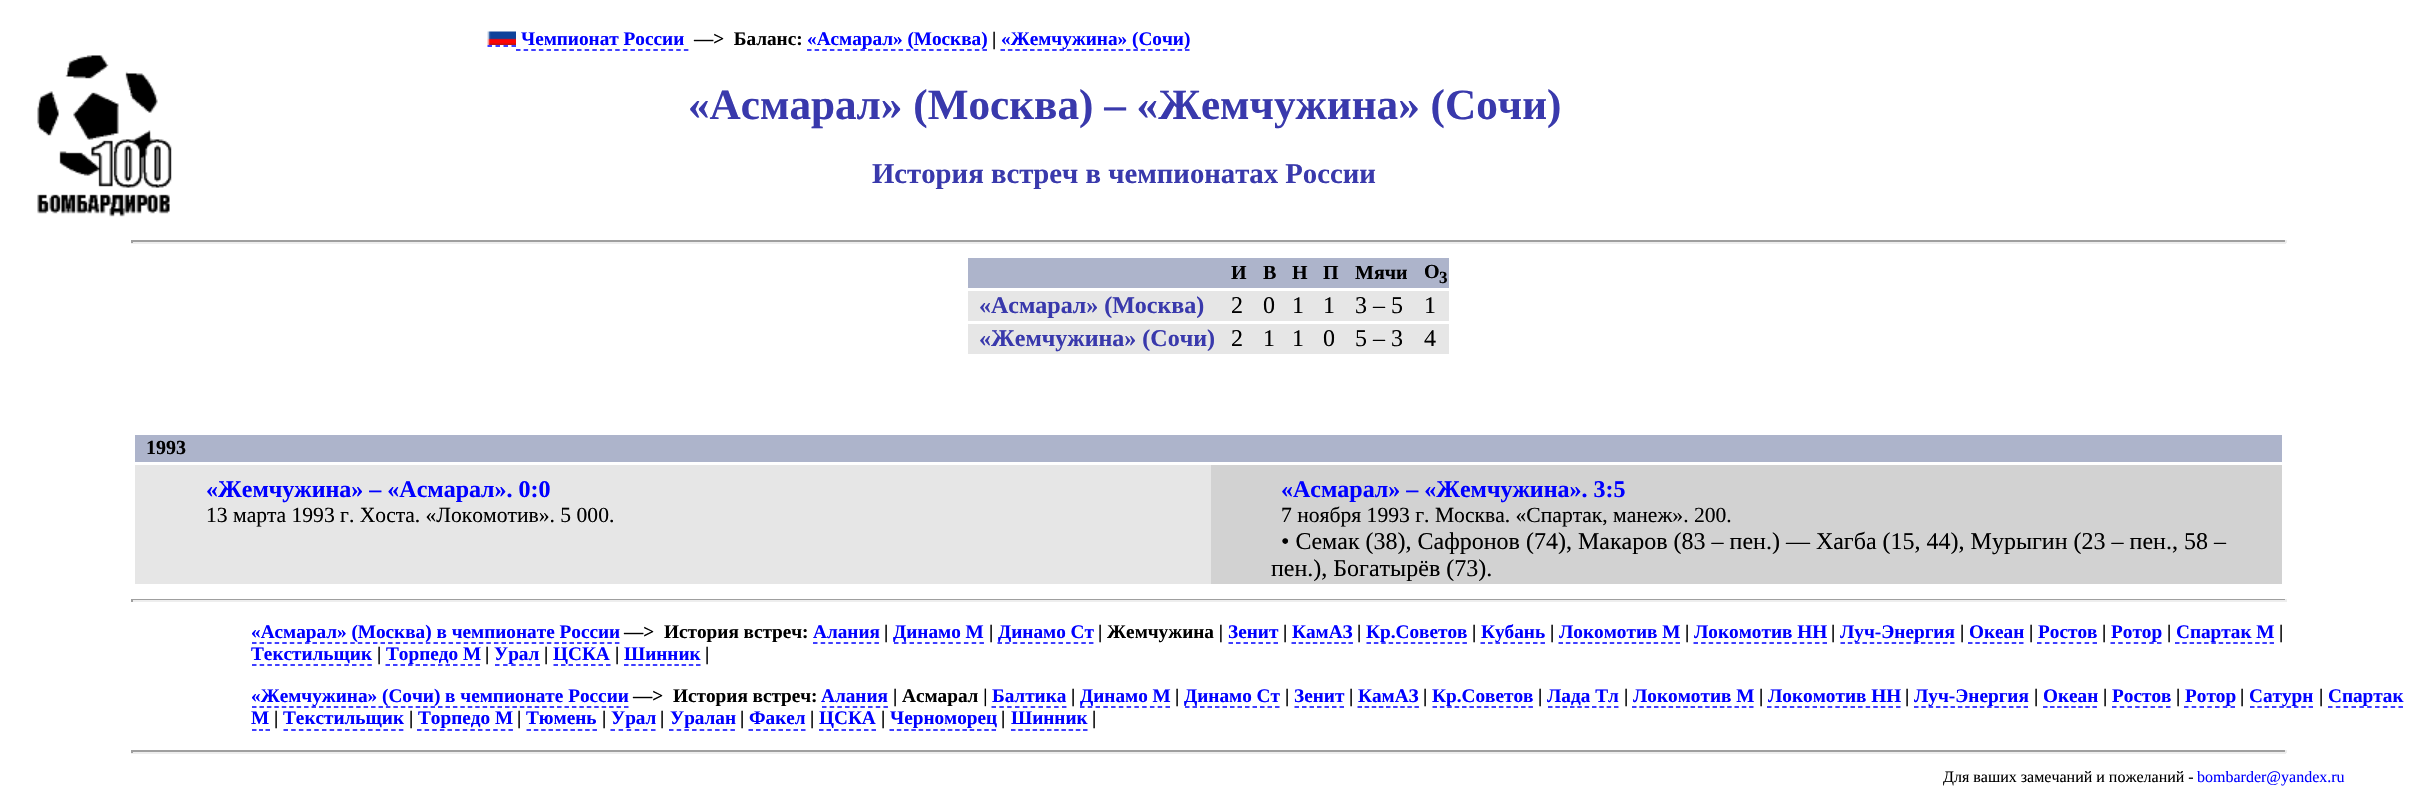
static SkFont makeFont(const char* family, int weight, float size, bool italic = false) {
  SkFontStyle style(weight, SkFontStyle::kNormal_Width,
    italic ? SkFontStyle::kItalic_Slant : SkFontStyle::kUpright_Slant);
  SkFont result(fontMgr->matchFamilyStyle(family, style), size);
  result.setSubpixel(true);
  return result;
}

static void text(SkCanvas* c, const char* s, float x, float y, const SkFont& font, SkColor color) {
  SkPaint ink(SkColor4f::FromColor(color));
  ink.setAntiAlias(true);
  c->drawString(s, x, y, font, ink);
}

static void box(SkCanvas* c, float l, float t, float r, float b, SkColor color) {
  SkPaint ink(SkColor4f::FromColor(color));
  ink.setAntiAlias(true);
  c->drawRect(SkRect::MakeLTRB(l, t, r, b), ink);
}

static void picture(SkCanvas* c, const char* path, float l, float t, float r, float b) {
  auto image = SkImages::DeferredFromEncodedData(SkData::MakeFromFileName(path));
  c->drawImageRect(image, SkRect::MakeLTRB(l, t, r, b), SkSamplingOptions());
}

void draw(SkCanvas* c) {
  SkPaint paint;
  paint.setAntiAlias(true);
  c->clear(0xffffffff);
  picture(c, "img_01.png", 37, 55, 172, 217);
  picture(c, "img_02.png", 487, 31, 516, 45);
  SkFont face1 = makeFont("Liberation Serif", 700, 19.25f);
  text(c, "Чемпионат России", 521, 45, face1, 0xff0000ff);
  paint.setStyle(SkPaint::kStroke_Style);
  paint.setStrokeWidth(1.5f);
  paint.setColor(0xff0000ff);
  paint.setPathEffect(SkDashPathEffect::Make({{4.5f, 3.5f}}, 0));
  c->drawPath(SkPathBuilder().moveTo(487.5f, 46).lineTo(516, 46).detach(), paint);
  paint.setPathEffect(nullptr);
  paint.setPathEffect(SkDashPathEffect::Make({{4.5f, 3.13f}}, 0));
  c->drawPath(SkPathBuilder().moveTo(516, 50).lineTo(688.5f, 50).detach(), paint);
  paint.setPathEffect(nullptr);
  text(c, "—>  Баланс:", 694, 45, face1, 0xff000000);
  paint.setPathEffect(SkDashPathEffect::Make({{4.5f, 3.13f}}, 0));
  c->drawPath(SkPathBuilder().moveTo(807, 50).lineTo(987, 50).detach(), paint);
  paint.setPathEffect(nullptr);
  text(c, "«Асмарал» (Москва)", 807, 45, face1, 0xff0000ff);
  text(c, "|", 992, 45, face1, 0xff000000);
  paint.setPathEffect(SkDashPathEffect::Make({{4.5f, 2.88f}}, 0));
  c->drawPath(SkPathBuilder().moveTo(1000.5f, 50).lineTo(1189.5f, 50).detach(), paint);
  paint.setPathEffect(nullptr);
  text(c, "«Жемчужина» (Сочи)", 1001, 45, face1, 0xff0000ff);
  SkFont face2 = makeFont("Liberation Serif", 700, 43.2f);
  text(c, "«Асмарал» (Москва) – «Жемчужина» (Сочи)", 688, 119, face2, 0xff3939ac);
  SkFont face3 = makeFont("Liberation Serif", 700, 28.75f);
  text(c, "История встреч в чемпионатах России", 872, 183, face3, 0xff3939ac);
  box(c, 131, 240, 2286, 242, 0xff9f9f9f);
  box(c, 2285, 240, 2287, 243, 0xffeeeeee);
  box(c, 131, 242, 2286, 244, 0xffeeeeee);
  box(c, 131, 240, 133, 243, 0xff9f9f9f);
  box(c, 968, 258, 1449, 288, 0xffadb4cb);
  SkFont face4 = makeFont("Liberation Serif", 700, 20);
  text(c, "И", 1231, 279, face4, 0xff000000);
  text(c, "В", 1263, 279, face4, 0xff000000);
  text(c, "Н", 1292, 279, face4, 0xff000000);
  text(c, "П", 1323, 279, face4, 0xff000000);
  text(c, "Мячи", 1355, 279, face4, 0xff000000);
  text(c, "О", 1424, 278, face4, 0xff000000);
  SkFont face5 = makeFont("Liberation Serif", 700, 17);
  text(c, "3", 1439, 283, face5, 0xff000000);
  box(c, 968, 291, 1449, 321, 0xffe6e6e6);
  SkFont face6 = makeFont("Liberation Serif", 700, 24);
  text(c, "«Асмарал» (Москва)", 979, 313, face6, 0xff3939ac);
  SkFont face7 = makeFont("Liberation Serif", 400, 24);
  text(c, "2", 1231, 313, face7, 0xff000000);
  text(c, "0", 1263, 313, face7, 0xff000000);
  text(c, "1", 1292, 313, face7, 0xff000000);
  text(c, "1", 1323, 313, face7, 0xff000000);
  text(c, "3 – 5", 1355, 313, face7, 0xff000000);
  text(c, "1", 1424, 313, face7, 0xff000000);
  box(c, 968, 324, 1449, 354, 0xffe6e6e6);
  text(c, "«Жемчужина» (Сочи)", 979, 346, face6, 0xff3939ac);
  text(c, "2", 1231, 346, face7, 0xff000000);
  text(c, "1", 1263, 346, face7, 0xff000000);
  text(c, "1", 1292, 346, face7, 0xff000000);
  text(c, "0", 1323, 346, face7, 0xff000000);
  text(c, "5 – 3", 1355, 346, face7, 0xff000000);
  text(c, "4", 1424, 346, face7, 0xff000000);
  box(c, 135, 435, 2282, 462, 0xffadb4cb);
  text(c, "1993", 146, 454, face4, 0xff000000);
  box(c, 135, 465, 1211, 584, 0xffe6e6e6);
  text(c, "«Жемчужина» – «Асмарал». 0:0", 206, 497, face6, 0xff0000ff);
  SkFont face8 = makeFont("Liberation Serif", 400, 21.6f);
  text(c, "13 марта 1993 г. Хоста. «Локомотив». 5 000.", 206, 522, face8, 0xff000000);
  box(c, 1211, 465, 2282, 584, 0xffd2d2d2);
  text(c, "«Асмарал» – «Жемчужина». 3:5", 1281, 497, face6, 0xff0000ff);
  text(c, "7 ноября 1993 г. Москва. «Спартак, манеж». 200.", 1281, 522, face8, 0xff000000);
  text(c, "• Семак (38), Сафронов (74), Макаров (83 – пен.) — Хагба (15, 44), Мурыгин (23 – пен., 58 –", 1281, 549, face7, 0xff000000);
  text(c, "пен.), Богатырёв (73).", 1271, 576, face7, 0xff000000);
  box(c, 131, 599, 2286, 600, 0xff9f9f9f);
  box(c, 2285, 599, 2287, 602, 0xffeeeeee);
  box(c, 131, 600, 2286, 602, 0xffeeeeee);
  box(c, 131, 599, 133, 602, 0xff9f9f9f);
  paint.setPathEffect(SkDashPathEffect::Make({{4.5f, 3.06f}}, 0));
  c->drawPath(SkPathBuilder().moveTo(252, 643).lineTo(619.5f, 643).detach(), paint);
  paint.setPathEffect(nullptr);
  text(c, "«Асмарал» (Москва) в чемпионате России", 251, 638, face1, 0xff0000ff);
  text(c, "—>", 624, 638, face1, 0xff000000);
  text(c, "История встреч:", 664, 638, face1, 0xff000000);
  text(c, "Алания", 813, 638, face1, 0xff0000ff);
  paint.setPathEffect(SkDashPathEffect::Make({{4.5f, 3.18f}}, 0));
  c->drawPath(SkPathBuilder().moveTo(813, 643).lineTo(879, 643).detach(), paint);
  paint.setPathEffect(nullptr);
  text(c, "|", 884, 638, face1, 0xff000000);
  paint.setPathEffect(SkDashPathEffect::Make({{4.5f, 3.27f}}, 0));
  c->drawPath(SkPathBuilder().moveTo(894, 643).lineTo(984, 643).detach(), paint);
  paint.setPathEffect(nullptr);
  text(c, "Динамо М", 893, 638, face1, 0xff0000ff);
  text(c, "|", 989, 638, face1, 0xff000000);
  paint.setPathEffect(SkDashPathEffect::Make({{4.5f, 3.12f}}, 0));
  c->drawPath(SkPathBuilder().moveTo(997.5f, 643).lineTo(1093.5f, 643).detach(), paint);
  paint.setPathEffect(nullptr);
  text(c, "Динамо Ст", 998, 638, face1, 0xff0000ff);
  text(c, "| Жемчужина |", 1098, 638, face1, 0xff000000);
  text(c, "Зенит", 1228, 638, face1, 0xff0000ff);
  paint.setPathEffect(SkDashPathEffect::Make({{4.5f, 3}}, 0));
  c->drawPath(SkPathBuilder().moveTo(1228.5f, 643).lineTo(1278, 643).detach(), paint);
  paint.setPathEffect(nullptr);
  text(c, "|", 1283, 638, face1, 0xff000000);
  text(c, "КамАЗ", 1292, 638, face1, 0xff0000ff);
  paint.setPathEffect(SkDashPathEffect::Make({{4.5f, 2.62f}}, 0));
  c->drawPath(SkPathBuilder().moveTo(1291.5f, 643).lineTo(1353, 643).detach(), paint);
  paint.setPathEffect(nullptr);
  text(c, "|", 1357, 638, face1, 0xff000000);
  paint.setPathEffect(SkDashPathEffect::Make({{4.5f, 2.88f}}, 0));
  c->drawPath(SkPathBuilder().moveTo(1366.5f, 643).lineTo(1467, 643).detach(), paint);
  paint.setPathEffect(nullptr);
  text(c, "Кр.Советов", 1366, 638, face1, 0xff0000ff);
  text(c, "|", 1472, 638, face1, 0xff000000);
  paint.setPathEffect(SkDashPathEffect::Make({{4.5f, 3}}, 0));
  c->drawPath(SkPathBuilder().moveTo(1480.5f, 643).lineTo(1545, 643).detach(), paint);
  paint.setPathEffect(nullptr);
  text(c, "Кубань", 1481, 638, face1, 0xff0000ff);
  text(c, "|", 1550, 638, face1, 0xff000000);
  text(c, "Локомотив М", 1559, 638, face1, 0xff0000ff);
  paint.setPathEffect(SkDashPathEffect::Make({{4.5f, 2.82f}}, 0));
  c->drawPath(SkPathBuilder().moveTo(1558.5f, 643).lineTo(1680, 643).detach(), paint);
  paint.setPathEffect(nullptr);
  text(c, "|", 1685, 638, face1, 0xff000000);
  text(c, "Локомотив НН", 1694, 638, face1, 0xff0000ff);
  paint.setPathEffect(SkDashPathEffect::Make({{4.5f, 3.09f}}, 0));
  c->drawPath(SkPathBuilder().moveTo(1693.5f, 643).lineTo(1827, 643).detach(), paint);
  paint.setPathEffect(nullptr);
  text(c, "|", 1831, 638, face1, 0xff000000);
  paint.setPathEffect(SkDashPathEffect::Make({{4.5f, 2.81f}}, 0));
  c->drawPath(SkPathBuilder().moveTo(1840.5f, 643).lineTo(1954.5f, 643).detach(), paint);
  paint.setPathEffect(nullptr);
  text(c, "Луч-Энергия", 1840, 638, face1, 0xff0000ff);
  text(c, "|", 1960, 638, face1, 0xff000000);
  text(c, "Океан", 1969, 638, face1, 0xff0000ff);
  paint.setPathEffect(SkDashPathEffect::Make({{4.5f, 2.79f}}, 0));
  c->drawPath(SkPathBuilder().moveTo(1968, 643).lineTo(2023.5f, 643).detach(), paint);
  paint.setPathEffect(nullptr);
  text(c, "|", 2029, 638, face1, 0xff000000);
  text(c, "Ростов", 2038, 638, face1, 0xff0000ff);
  paint.setPathEffect(SkDashPathEffect::Make({{4.5f, 3.44f}}, 0));
  c->drawPath(SkPathBuilder().moveTo(2037, 643).lineTo(2097, 643).detach(), paint);
  paint.setPathEffect(nullptr);
  text(c, "|", 2102, 638, face1, 0xff000000);
  paint.setPathEffect(SkDashPathEffect::Make({{4.5f, 3.25f}}, 0));
  c->drawPath(SkPathBuilder().moveTo(2110.5f, 643).lineTo(2161.5f, 643).detach(), paint);
  paint.setPathEffect(nullptr);
  text(c, "Ротор", 2111, 638, face1, 0xff0000ff);
  text(c, "|", 2167, 638, face1, 0xff000000);
  paint.setPathEffect(SkDashPathEffect::Make({{4.5f, 2.78f}}, 0));
  c->drawPath(SkPathBuilder().moveTo(2175, 643).lineTo(2274, 643).detach(), paint);
  paint.setPathEffect(nullptr);
  text(c, "Спартак М", 2176, 638, face1, 0xff0000ff);
  text(c, "|", 2279, 638, face1, 0xff000000);
  text(c, "Текстильщик", 251, 660, face1, 0xff0000ff);
  paint.setPathEffect(SkDashPathEffect::Make({{4.5f, 3.19f}}, 0));
  c->drawPath(SkPathBuilder().moveTo(252, 665).lineTo(372, 665).detach(), paint);
  paint.setPathEffect(nullptr);
  text(c, "|", 377, 660, face1, 0xff000000);
  paint.setPathEffect(SkDashPathEffect::Make({{4.5f, 3}}, 0));
  c->drawPath(SkPathBuilder().moveTo(385.5f, 665).lineTo(480, 665).detach(), paint);
  paint.setPathEffect(nullptr);
  text(c, "Торпедо М", 386, 660, face1, 0xff0000ff);
  text(c, "|", 485, 660, face1, 0xff000000);
  paint.setPathEffect(SkDashPathEffect::Make({{4.5f, 3.6f}}, 0));
  c->drawPath(SkPathBuilder().moveTo(495, 665).lineTo(540, 665).detach(), paint);
  paint.setPathEffect(nullptr);
  text(c, "Урал", 494, 660, face1, 0xff0000ff);
  text(c, "|", 544, 660, face1, 0xff000000);
  paint.setPathEffect(SkDashPathEffect::Make({{4.5f, 3}}, 0));
  c->drawPath(SkPathBuilder().moveTo(553.5f, 665).lineTo(610.5f, 665).detach(), paint);
  paint.setPathEffect(nullptr);
  text(c, "ЦСКА", 553, 660, face1, 0xff0000ff);
  text(c, "|", 615, 660, face1, 0xff000000);
  text(c, "Шинник", 624, 660, face1, 0xff0000ff);
  paint.setPathEffect(SkDashPathEffect::Make({{4.5f, 2.7f}}, 0));
  c->drawPath(SkPathBuilder().moveTo(624, 665).lineTo(700.5f, 665).detach(), paint);
  paint.setPathEffect(nullptr);
  text(c, "|", 705, 660, face1, 0xff000000);
  paint.setPathEffect(SkDashPathEffect::Make({{4.5f, 2.94f}}, 0));
  c->drawPath(SkPathBuilder().moveTo(252, 707).lineTo(628.5f, 707).detach(), paint);
  paint.setPathEffect(nullptr);
  text(c, "«Жемчужина» (Сочи) в чемпионате России", 251, 702, face1, 0xff0000ff);
  text(c, "—>", 633, 702, face1, 0xff000000);
  text(c, "История встреч:", 673, 702, face1, 0xff000000);
  text(c, "Алания", 821, 702, face1, 0xff0000ff);
  paint.setPathEffect(SkDashPathEffect::Make({{4.5f, 3.18f}}, 0));
  c->drawPath(SkPathBuilder().moveTo(822, 707).lineTo(888, 707).detach(), paint);
  paint.setPathEffect(nullptr);
  text(c, "| Асмарал |", 893, 702, face1, 0xff000000);
  text(c, "Балтика", 992, 702, face1, 0xff0000ff);
  paint.setPathEffect(SkDashPathEffect::Make({{4.5f, 3.33f}}, 0));
  c->drawPath(SkPathBuilder().moveTo(991.5f, 707).lineTo(1066.5f, 707).detach(), paint);
  paint.setPathEffect(nullptr);
  text(c, "|", 1071, 702, face1, 0xff000000);
  paint.setPathEffect(SkDashPathEffect::Make({{4.5f, 3.27f}}, 0));
  c->drawPath(SkPathBuilder().moveTo(1080, 707).lineTo(1170, 707).detach(), paint);
  paint.setPathEffect(nullptr);
  text(c, "Динамо М", 1080, 702, face1, 0xff0000ff);
  text(c, "|", 1175, 702, face1, 0xff000000);
  paint.setPathEffect(SkDashPathEffect::Make({{4.5f, 3}}, 0));
  c->drawPath(SkPathBuilder().moveTo(1185, 707).lineTo(1279.5f, 707).detach(), paint);
  paint.setPathEffect(nullptr);
  text(c, "Динамо Ст", 1184, 702, face1, 0xff0000ff);
  text(c, "|", 1285, 702, face1, 0xff000000);
  text(c, "Зенит", 1294, 702, face1, 0xff0000ff);
  paint.setPathEffect(SkDashPathEffect::Make({{4.5f, 3}}, 0));
  c->drawPath(SkPathBuilder().moveTo(1294.5f, 707).lineTo(1344, 707).detach(), paint);
  paint.setPathEffect(nullptr);
  text(c, "|", 1349, 702, face1, 0xff000000);
  text(c, "КамАЗ", 1358, 702, face1, 0xff0000ff);
  paint.setPathEffect(SkDashPathEffect::Make({{4.5f, 2.62f}}, 0));
  c->drawPath(SkPathBuilder().moveTo(1357.5f, 707).lineTo(1419, 707).detach(), paint);
  paint.setPathEffect(nullptr);
  text(c, "|", 1423, 702, face1, 0xff000000);
  paint.setPathEffect(SkDashPathEffect::Make({{4.5f, 2.88f}}, 0));
  c->drawPath(SkPathBuilder().moveTo(1432.5f, 707).lineTo(1533, 707).detach(), paint);
  paint.setPathEffect(nullptr);
  text(c, "Кр.Советов", 1432, 702, face1, 0xff0000ff);
  text(c, "|", 1538, 702, face1, 0xff000000);
  text(c, "Лада Тл", 1547, 702, face1, 0xff0000ff);
  paint.setPathEffect(SkDashPathEffect::Make({{4.5f, 2.83f}}, 0));
  c->drawPath(SkPathBuilder().moveTo(1548, 707).lineTo(1618.5f, 707).detach(), paint);
  paint.setPathEffect(nullptr);
  text(c, "|", 1624, 702, face1, 0xff000000);
  text(c, "Локомотив М", 1633, 702, face1, 0xff0000ff);
  paint.setPathEffect(SkDashPathEffect::Make({{4.5f, 2.82f}}, 0));
  c->drawPath(SkPathBuilder().moveTo(1632, 707).lineTo(1753.5f, 707).detach(), paint);
  paint.setPathEffect(nullptr);
  text(c, "|", 1759, 702, face1, 0xff000000);
  text(c, "Локомотив НН", 1768, 702, face1, 0xff0000ff);
  paint.setPathEffect(SkDashPathEffect::Make({{4.5f, 3.09f}}, 0));
  c->drawPath(SkPathBuilder().moveTo(1767, 707).lineTo(1900.5f, 707).detach(), paint);
  paint.setPathEffect(nullptr);
  text(c, "|", 1905, 702, face1, 0xff000000);
  paint.setPathEffect(SkDashPathEffect::Make({{4.5f, 2.81f}}, 0));
  c->drawPath(SkPathBuilder().moveTo(1914, 707).lineTo(2028, 707).detach(), paint);
  paint.setPathEffect(nullptr);
  text(c, "Луч-Энергия", 1914, 702, face1, 0xff0000ff);
  text(c, "|", 2034, 702, face1, 0xff000000);
  text(c, "Океан", 2043, 702, face1, 0xff0000ff);
  paint.setPathEffect(SkDashPathEffect::Make({{4.5f, 2.56f}}, 0));
  c->drawPath(SkPathBuilder().moveTo(2043, 707).lineTo(2097, 707).detach(), paint);
  paint.setPathEffect(nullptr);
  text(c, "|", 2103, 702, face1, 0xff000000);
  text(c, "Ростов", 2112, 702, face1, 0xff0000ff);
  paint.setPathEffect(SkDashPathEffect::Make({{4.5f, 3.21f}}, 0));
  c->drawPath(SkPathBuilder().moveTo(2112, 707).lineTo(2170.5f, 707).detach(), paint);
  paint.setPathEffect(nullptr);
  text(c, "|", 2176, 702, face1, 0xff000000);
  paint.setPathEffect(SkDashPathEffect::Make({{4.5f, 3.25f}}, 0));
  c->drawPath(SkPathBuilder().moveTo(2184, 707).lineTo(2235, 707).detach(), paint);
  paint.setPathEffect(nullptr);
  text(c, "Ротор", 2185, 702, face1, 0xff0000ff);
  text(c, "|", 2240, 702, face1, 0xff000000);
  paint.setPathEffect(SkDashPathEffect::Make({{4.5f, 2.82f}}, 0));
  c->drawPath(SkPathBuilder().moveTo(2250, 707).lineTo(2313, 707).detach(), paint);
  paint.setPathEffect(nullptr);
  text(c, "Сатурн", 2249, 702, face1, 0xff0000ff);
  text(c, "|", 2319, 702, face1, 0xff000000);
  paint.setPathEffect(SkDashPathEffect::Make({{4.5f, 3.33f}}, 0));
  c->drawPath(SkPathBuilder().moveTo(2328, 707).lineTo(2403, 707).detach(), paint);
  paint.setPathEffect(nullptr);
  text(c, "Спартак", 2328, 702, face1, 0xff0000ff);
  text(c, "М", 251, 724, face1, 0xff0000ff);
  c->drawPath(SkPathBuilder().moveTo(252, 730).lineTo(256.5f, 730).moveTo(259, 730).lineTo(263, 730).moveTo(265.5f, 730).lineTo(270, 730).detach(), paint);
  text(c, "|", 274, 724, face1, 0xff000000);
  text(c, "Текстильщик", 283, 724, face1, 0xff0000ff);
  paint.setPathEffect(SkDashPathEffect::Make({{4.5f, 3.19f}}, 0));
  c->drawPath(SkPathBuilder().moveTo(283.5f, 730).lineTo(403.5f, 730).detach(), paint);
  paint.setPathEffect(nullptr);
  text(c, "|", 409, 724, face1, 0xff000000);
  text(c, "Торпедо М", 418, 724, face1, 0xff0000ff);
  paint.setPathEffect(SkDashPathEffect::Make({{4.5f, 3.12f}}, 0));
  c->drawPath(SkPathBuilder().moveTo(417, 730).lineTo(513, 730).detach(), paint);
  paint.setPathEffect(nullptr);
  text(c, "|", 517, 724, face1, 0xff000000);
  text(c, "Тюмень", 526, 724, face1, 0xff0000ff);
  paint.setPathEffect(SkDashPathEffect::Make({{4.5f, 2.83f}}, 0));
  c->drawPath(SkPathBuilder().moveTo(526.5f, 730).lineTo(597, 730).detach(), paint);
  paint.setPathEffect(nullptr);
  text(c, "|", 602, 724, face1, 0xff000000);
  text(c, "Урал", 611, 724, face1, 0xff0000ff);
  paint.setPathEffect(SkDashPathEffect::Make({{4.5f, 3.6f}}, 0));
  c->drawPath(SkPathBuilder().moveTo(610.5f, 730).lineTo(655.5f, 730).detach(), paint);
  paint.setPathEffect(nullptr);
  text(c, "|", 660, 724, face1, 0xff000000);
  text(c, "Уралан", 670, 724, face1, 0xff0000ff);
  paint.setPathEffect(SkDashPathEffect::Make({{4.5f, 3.18f}}, 0));
  c->drawPath(SkPathBuilder().moveTo(669, 730).lineTo(735, 730).detach(), paint);
  paint.setPathEffect(nullptr);
  text(c, "|", 740, 724, face1, 0xff000000);
  text(c, "Факел", 749, 724, face1, 0xff0000ff);
  paint.setPathEffect(SkDashPathEffect::Make({{4.5f, 3}}, 0));
  c->drawPath(SkPathBuilder().moveTo(748.5f, 730).lineTo(805.5f, 730).detach(), paint);
  paint.setPathEffect(nullptr);
  text(c, "|", 810, 724, face1, 0xff000000);
  text(c, "ЦСКА", 819, 724, face1, 0xff0000ff);
  paint.setPathEffect(SkDashPathEffect::Make({{4.5f, 3}}, 0));
  c->drawPath(SkPathBuilder().moveTo(819, 730).lineTo(876, 730).detach(), paint);
  paint.setPathEffect(nullptr);
  text(c, "|", 881, 724, face1, 0xff000000);
  text(c, "Черноморец", 890, 724, face1, 0xff0000ff);
  paint.setPathEffect(SkDashPathEffect::Make({{4.5f, 2.79f}}, 0));
  c->drawPath(SkPathBuilder().moveTo(889.5f, 730).lineTo(996, 730).detach(), paint);
  paint.setPathEffect(nullptr);
  text(c, "|", 1001, 724, face1, 0xff000000);
  text(c, "Шинник", 1011, 724, face1, 0xff0000ff);
  paint.setPathEffect(SkDashPathEffect::Make({{4.5f, 2.7f}}, 0));
  c->drawPath(SkPathBuilder().moveTo(1011, 730).lineTo(1087.5f, 730).detach(), paint);
  paint.setPathEffect(nullptr);
  text(c, "|", 1092, 724, face1, 0xff000000);
  box(c, 131, 750, 2286, 752, 0xff9f9f9f);
  box(c, 2285, 750, 2287, 753, 0xffeeeeee);
  box(c, 131, 752, 2286, 754, 0xffeeeeee);
  box(c, 131, 750, 133, 753, 0xff9f9f9f);
  SkFont face9 = makeFont("Liberation Serif", 400, 16);
  text(c, "Для ваших замечаний и пожеланий -", 1943, 782, face9, 0xff000000);
  text(c, "bombarder@yandex.ru", 2197, 782, face9, 0xff0000ff);
}
